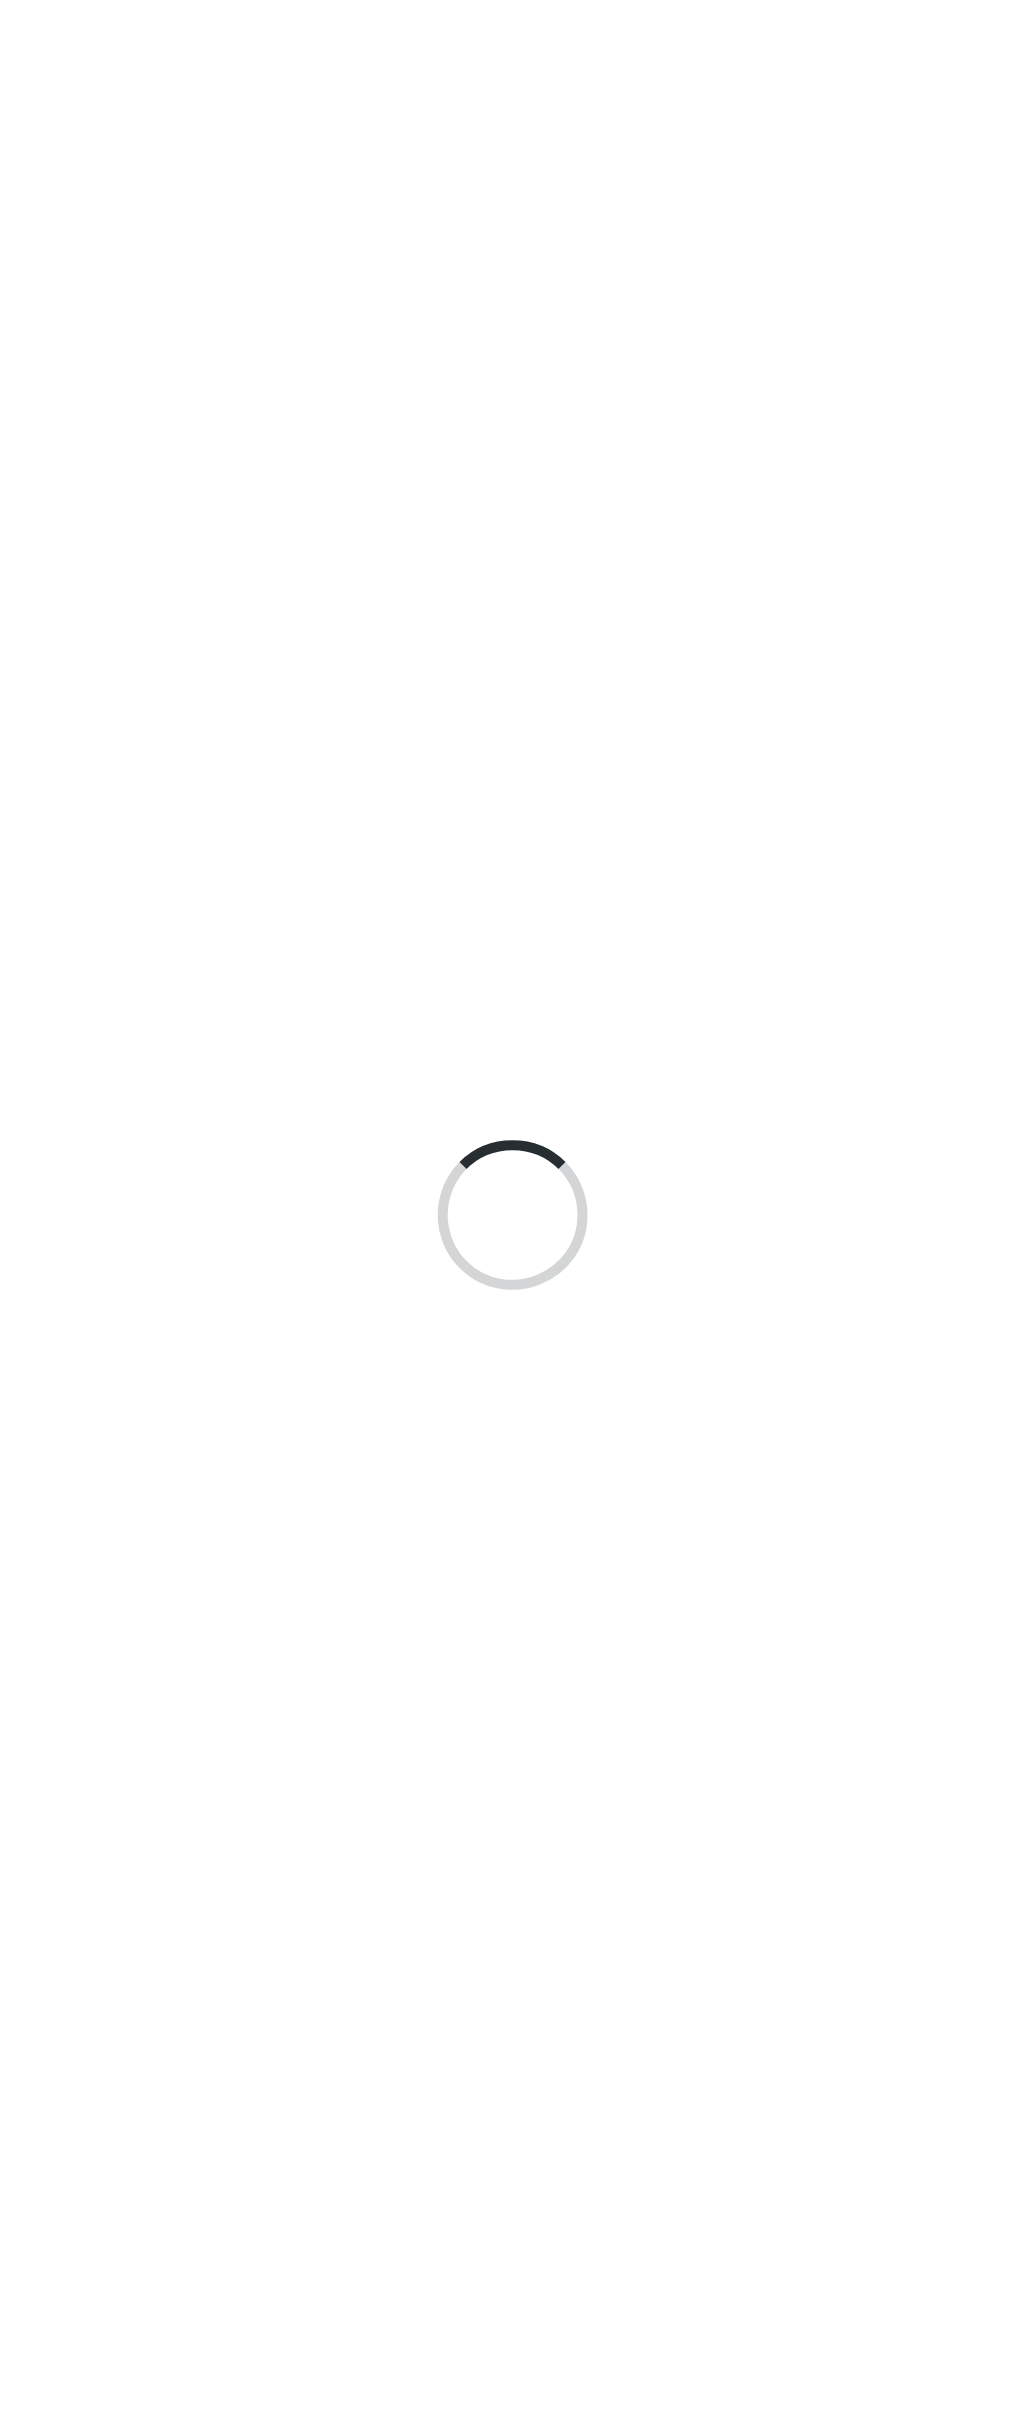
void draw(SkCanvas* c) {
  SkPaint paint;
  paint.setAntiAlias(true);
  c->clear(0xffffffff);
  paint.setStyle(SkPaint::kStroke_Style);
  paint.setStrokeWidth(10);
  paint.setColor(0xff262e31);
  c->drawPath(SkPathBuilder().moveTo(463, 1165.5f).cubicTo(490, 1138.5f, 535, 1138.5f, 562, 1165.5f).detach(), paint);
  paint.setColor(0x33262e31);
  c->drawPath(SkPathBuilder().moveTo(562, 1165.5f).cubicTo(575, 1178.5f, 582.5f, 1196.5f, 582.5f, 1215).cubicTo(582.5f, 1277, 507, 1308, 463, 1264.5f).cubicTo(453.5f, 1255, 446.5f, 1242, 444, 1228.5f).cubicTo(439.5f, 1206, 446.5f, 1182, 463, 1165.5f).detach(), paint);
}
